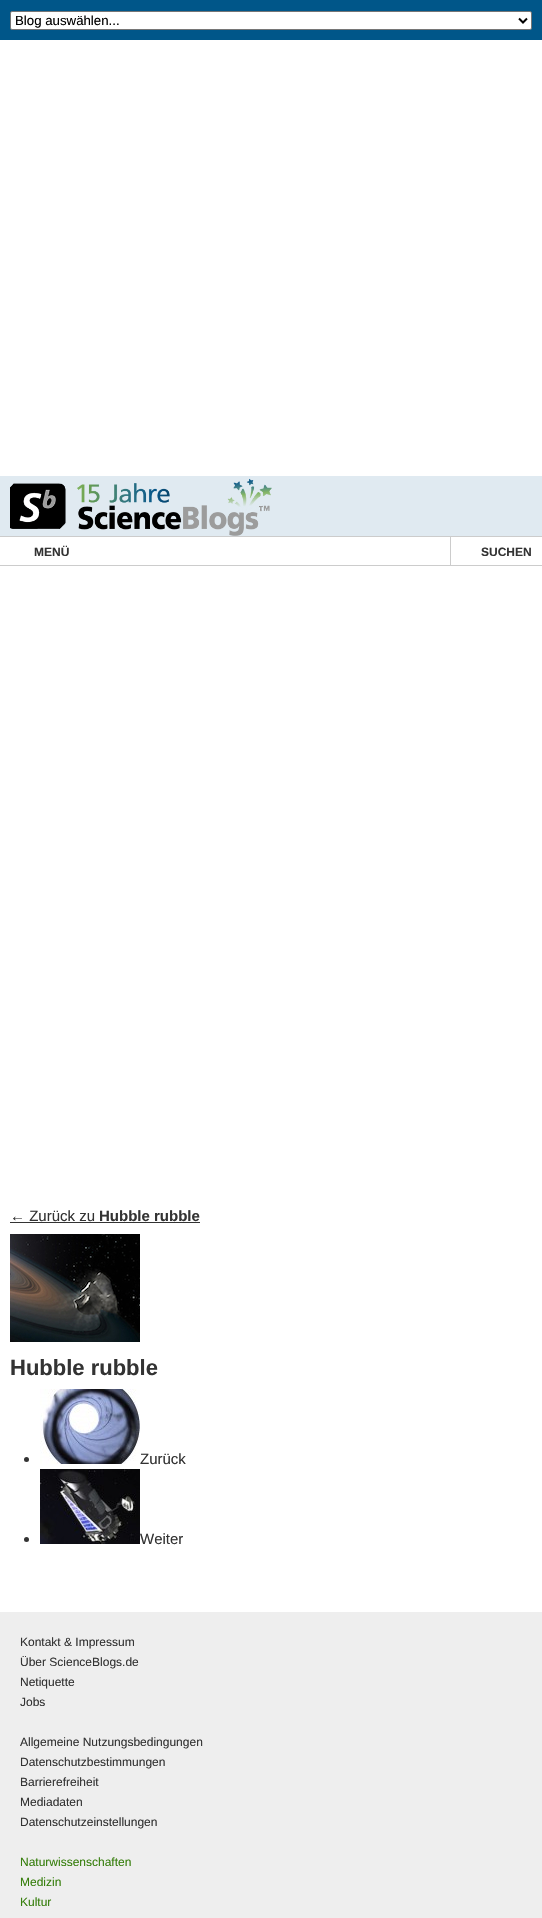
static SkFont makeFont(const char* family, int weight, float size, bool italic = false) {
  SkFontStyle style(weight, SkFontStyle::kNormal_Width,
    italic ? SkFontStyle::kItalic_Slant : SkFontStyle::kUpright_Slant);
  SkFont result(fontMgr->matchFamilyStyle(family, style), size);
  result.setSubpixel(true);
  return result;
}

static void text(SkCanvas* c, const char* s, float x, float y, const SkFont& font, SkColor color) {
  SkPaint ink(SkColor4f::FromColor(color));
  ink.setAntiAlias(true);
  c->drawString(s, x, y, font, ink);
}

static void box(SkCanvas* c, float l, float t, float r, float b, SkColor color) {
  SkPaint ink(SkColor4f::FromColor(color));
  ink.setAntiAlias(true);
  c->drawRect(SkRect::MakeLTRB(l, t, r, b), ink);
}

static void picture(SkCanvas* c, const char* path, float l, float t, float r, float b) {
  auto image = SkImages::DeferredFromEncodedData(SkData::MakeFromFileName(path));
  c->drawImageRect(image, SkRect::MakeLTRB(l, t, r, b), SkSamplingOptions());
}

void draw(SkCanvas* c) {
  SkPaint paint;
  paint.setAntiAlias(true);
  c->clear(0xffffffff);
  box(c, 0, 476, 542, 536, 0xffe0eaf1);
  box(c, 0, 0, 542, 40, 0xff005689);
  paint.setColor(0xffffffff);
  c->drawRoundRect(SkRect::MakeLTRB(10.5f, 11.5f, 531.5f, 29.5f), 1.5f, 1.5f, paint);
  paint.setStyle(SkPaint::kStroke_Style);
  paint.setStrokeWidth(1);
  paint.setColor(0xff767676);
  c->drawRoundRect(SkRect::MakeLTRB(10.5f, 11.5f, 531.5f, 29.5f), 1.5f, 1.5f, paint);
  paint.setStrokeWidth(2);
  paint.setColor(0xff000000);
  c->drawPath(SkPathBuilder().moveTo(519, 18.5f).lineTo(523, 22.5f).lineTo(527, 18.5f).detach(), paint);
  SkFont face1 = makeFont("Liberation Sans", 400, 13.25f);
  text(c, "Blog auswählen...", 15, 25, face1, 0xff000000);
  picture(c, "img_01.png", 10, 478, 272, 536);
  box(c, 0, 536, 542, 537, 0xffcccccc);
  box(c, 0, 565, 542, 566, 0xffcccccc);
  SkFont face2 = makeFont("Liberation Sans", 700, 12);
  text(c, "MENÜ", 34, 556, face2, 0xff333333);
  box(c, 450, 537, 451, 565, 0xffcccccc);
  text(c, "SUCHEN", 481, 556, face2, 0xff333333);
  SkFont face3 = makeFont("Liberation Sans", 400, 15);
  text(c, "← Zurück zu", 10, 1221, face3, 0xff333333);
  box(c, 10, 1222, 200, 1223, 0xff333333);
  SkFont face4 = makeFont("Liberation Sans", 700, 15);
  text(c, "Hubble rubble", 99, 1221, face4, 0xff333333);
  picture(c, "img_02.png", 10, 1234, 140, 1342);
  SkFont face5 = makeFont("Liberation Sans", 700, 22);
  text(c, "Hubble rubble", 10, 1375, face5, 0xff333333);
  paint.setStyle(SkPaint::kFill_Style);
  paint.setColor(0xff333333);
  c->drawCircle(26.5f, 1459.5f, 2.5f, paint);
  picture(c, "img_03.png", 40, 1389, 140, 1464);
  text(c, "Zurück", 140, 1464, face3, 0xff333333);
  c->drawCircle(26.5f, 1539.5f, 2.5f, paint);
  picture(c, "img_04.png", 40, 1469, 140, 1544);
  text(c, "Weiter", 140, 1544, face3, 0xff333333);
  box(c, 0, 1612, 542, 1918, 0xffeeeeee);
  SkFont face6 = makeFont("Liberation Sans", 400, 12);
  text(c, "Kontakt & Impressum", 20, 1646, face6, 0xff333333);
  text(c, "Über ScienceBlogs.de", 20, 1666, face6, 0xff333333);
  text(c, "Netiquette", 20, 1686, face6, 0xff333333);
  text(c, "Jobs", 20, 1706, face6, 0xff333333);
  text(c, "Allgemeine Nutzungsbedingungen", 20, 1746, face6, 0xff333333);
  text(c, "Datenschutzbestimmungen", 20, 1766, face6, 0xff333333);
  text(c, "Barrierefreiheit", 20, 1786, face6, 0xff333333);
  text(c, "Mediadaten", 20, 1806, face6, 0xff333333);
  text(c, "Datenschutzeinstellungen", 20, 1826, face6, 0xff333333);
  text(c, "Naturwissenschaften", 20, 1866, face6, 0xff377f0d);
  text(c, "Medizin", 20, 1886, face6, 0xff377f0d);
  text(c, "Kultur", 20, 1906, face6, 0xff377f0d);
}
